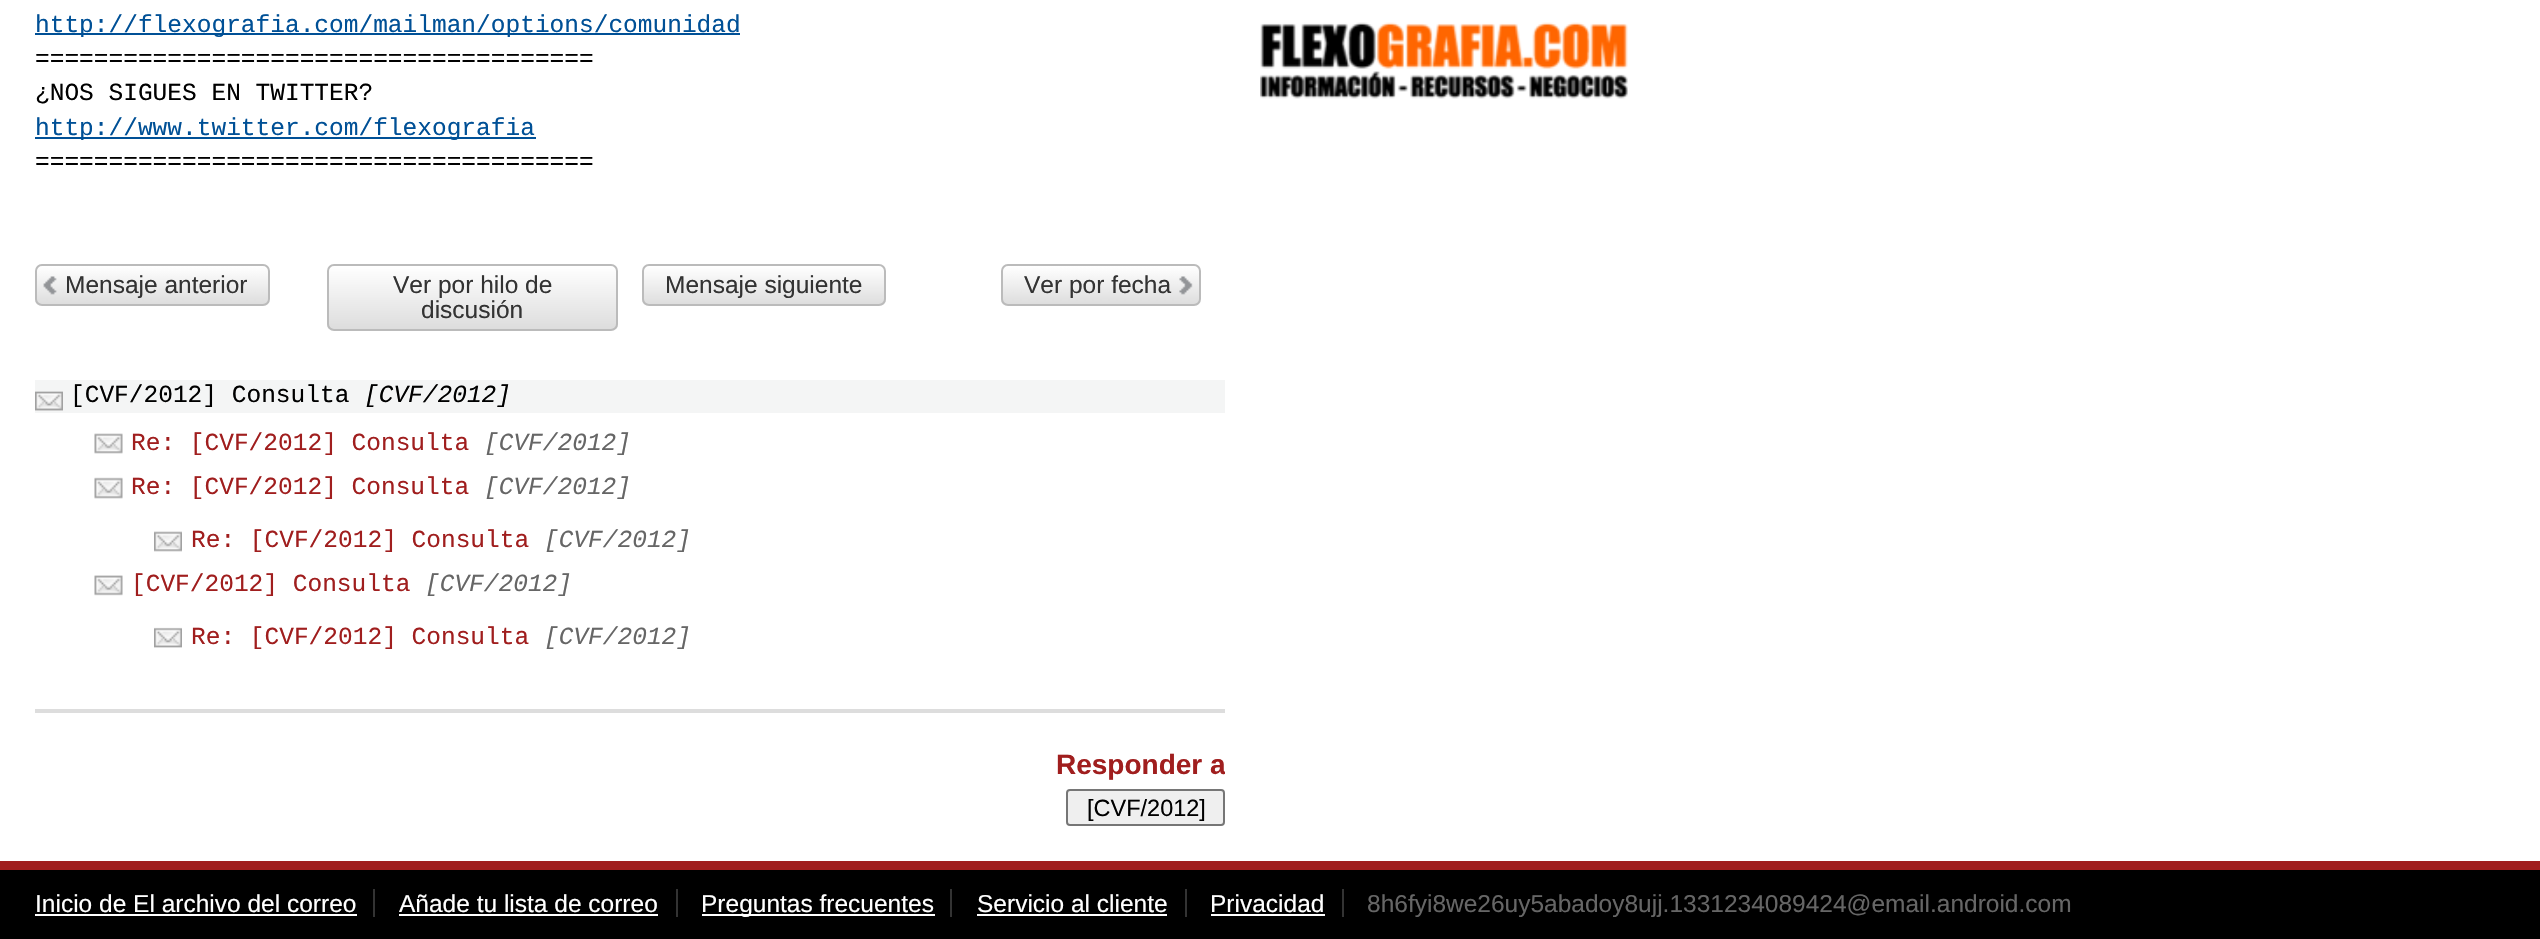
static SkFont makeFont(const char* family, int weight, float size, bool italic = false) {
  SkFontStyle style(weight, SkFontStyle::kNormal_Width,
    italic ? SkFontStyle::kItalic_Slant : SkFontStyle::kUpright_Slant);
  SkFont result(fontMgr->matchFamilyStyle(family, style), size);
  result.setSubpixel(true);
  return result;
}

static void text(SkCanvas* c, const char* s, float x, float y, const SkFont& font, SkColor color) {
  SkPaint ink(SkColor4f::FromColor(color));
  ink.setAntiAlias(true);
  c->drawString(s, x, y, font, ink);
}

static void box(SkCanvas* c, float l, float t, float r, float b, SkColor color) {
  SkPaint ink(SkColor4f::FromColor(color));
  ink.setAntiAlias(true);
  c->drawRect(SkRect::MakeLTRB(l, t, r, b), ink);
}

static void picture(SkCanvas* c, const char* path, float l, float t, float r, float b) {
  auto image = SkImages::DeferredFromEncodedData(SkData::MakeFromFileName(path));
  c->drawImageRect(image, SkRect::MakeLTRB(l, t, r, b), SkSamplingOptions());
}

void draw(SkCanvas* c) {
  SkPaint paint;
  paint.setAntiAlias(true);
  c->clear(0xffffffff);
  box(c, 35, 33, 740, 35, 0xff005096);
  SkFont face1 = makeFont("Liberation Mono", 400, 24.5f);
  text(c, "http://flexografia.com/mailman/options/comunidad", 35, 32, face1, 0xff005096);
  text(c, "======================================", 35, 66, face1, 0xff000000);
  text(c, "¿NOS SIGUES EN TWITTER?", 35, 100, face1, 0xff000000);
  box(c, 35, 137, 536, 139, 0xff005096);
  text(c, "http://www.twitter.com/flexografia", 35, 135, face1, 0xff005096);
  text(c, "======================================", 35, 169, face1, 0xff000000);
  picture(c, "img_01.png", 35, 264, 269, 306);
  paint.setStyle(SkPaint::kStroke_Style);
  paint.setStrokeWidth(2);
  paint.setColor(0xffbbbbbb);
  c->drawRoundRect(SkRect::MakeLTRB(36, 265, 269, 305), 6, 6, paint);
  SkFont face2 = makeFont("Liberation Sans", 400, 24.5f);
  text(c, "Mensaje anterior", 65, 293, face2, 0xff333333);
  c->save();
  c->clipPath(SkPathBuilder().moveTo(334, 264).lineTo(611, 264).cubicTo(615, 264, 618, 267, 618, 271).lineTo(618, 324).cubicTo(618, 328, 615, 331, 611, 331).lineTo(334, 331).cubicTo(330, 331, 327, 328, 327, 324).lineTo(327, 271).cubicTo(327, 267, 330, 264, 334, 264).close().detach(), true);
  paint.setStyle(SkPaint::kFill_Style);
  {
    const SkColor colors[] = {0xffffffff, 0xffdddddd};
    const float stops[] = {0, 1};
    const SkPoint ends[] = {{473, 266}, {473, 329}};
    paint.setShader(SkGradientShader::MakeLinear(ends, colors, stops, 2, SkTileMode::kClamp));
    paint.setAlpha(255);
  }
  c->drawRect(SkRect::MakeLTRB(327, 266, 618, 329), paint);
  c->restore();
  paint.setStyle(SkPaint::kStroke_Style);
  paint.setShader(nullptr);
  paint.setColor(0xffbbbbbb);
  c->drawRoundRect(SkRect::MakeLTRB(328, 265, 617, 330), 6, 6, paint);
  text(c, "Ver por hilo de", 393, 293, face2, 0xff333333);
  text(c, "discusión", 421, 318, face2, 0xff333333);
  c->save();
  c->clipPath(SkPathBuilder().moveTo(649, 264).lineTo(879, 264).cubicTo(883, 264, 886, 267, 886, 271).lineTo(886, 299).cubicTo(886, 303, 883, 306, 879, 306).lineTo(649, 306).cubicTo(645, 306, 642, 303, 642, 299).lineTo(642, 271).cubicTo(642, 267, 645, 264, 649, 264).close().detach(), true);
  paint.setStyle(SkPaint::kFill_Style);
  {
    const SkColor colors[] = {0xffffffff, 0xffdddddd};
    const float stops[] = {0, 1};
    const SkPoint ends[] = {{764, 266}, {764, 305}};
    paint.setShader(SkGradientShader::MakeLinear(ends, colors, stops, 2, SkTileMode::kClamp));
    paint.setAlpha(255);
  }
  c->drawRect(SkRect::MakeLTRB(642, 266, 886, 305), paint);
  c->restore();
  paint.setStyle(SkPaint::kStroke_Style);
  paint.setShader(nullptr);
  paint.setColor(0xffbbbbbb);
  c->drawRoundRect(SkRect::MakeLTRB(643, 265, 885, 305), 6, 6, paint);
  text(c, "Mensaje siguiente", 665, 293, face2, 0xff333333);
  picture(c, "img_02.png", 1001, 264, 1200, 306);
  c->drawRoundRect(SkRect::MakeLTRB(1002, 265, 1200, 305), 6, 6, paint);
  text(c, "Ver por fecha", 1024, 293, face2, 0xff333333);
  box(c, 35, 380, 1225, 413, 0xfff4f5f5);
  picture(c, "img_03.png", 35, 391, 63, 411);
  text(c, "[CVF/2012] Consulta", 70, 402, face1, 0xff000000);
  SkFont face3 = makeFont("Liberation Mono", 400, 24.5f, true);
  text(c, "[CVF/2012]", 364, 402, face3, 0xff000000);
  picture(c, "img_04.png", 94, 433, 123, 454);
  text(c, "Re: [CVF/2012] Consulta", 131, 450, face1, 0xffa01e1e);
  text(c, "[CVF/2012]", 484, 450, face3, 0xff666666);
  picture(c, "img_05.png", 94, 477, 123, 499);
  text(c, "Re: [CVF/2012] Consulta", 131, 494, face1, 0xffa01e1e);
  text(c, "[CVF/2012]", 484, 494, face3, 0xff666666);
  picture(c, "img_06.png", 154, 531, 182, 552);
  text(c, "Re: [CVF/2012] Consulta", 191, 547, face1, 0xffa01e1e);
  text(c, "[CVF/2012]", 544, 547, face3, 0xff666666);
  picture(c, "img_07.png", 94, 575, 123, 596);
  text(c, "[CVF/2012] Consulta", 131, 591, face1, 0xffa01e1e);
  text(c, "[CVF/2012]", 425, 591, face3, 0xff666666);
  picture(c, "img_08.png", 154, 627, 182, 648);
  text(c, "Re: [CVF/2012] Consulta", 191, 644, face1, 0xffa01e1e);
  text(c, "[CVF/2012]", 544, 644, face3, 0xff666666);
  box(c, 35, 709, 1225, 713, 0xffdddddd);
  c->save();
  c->clipRect(SkRect::MakeLTRB(35, 712, 1225, 826));
  SkFont face4 = makeFont("Liberation Sans", 700, 28);
  text(c, "Responder a", 1056, 774, face4, 0xffa01e1e);
  c->restore();
  paint.setStyle(SkPaint::kFill_Style);
  paint.setColor(0xffefefef);
  c->drawRoundRect(SkRect::MakeLTRB(1067, 790, 1224, 825), 3, 3, paint);
  paint.setStyle(SkPaint::kStroke_Style);
  paint.setColor(0xff767676);
  c->drawRoundRect(SkRect::MakeLTRB(1067, 790, 1224, 825), 3, 3, paint);
  SkFont face5 = makeFont("Liberation Sans", 400, 23.5f);
  text(c, "[CVF/2012]", 1087, 816, face5, 0xff000000);
  picture(c, "img_09.png", 1260, 22, 1628, 99);
  box(c, 0, 870, 2540, 939, 0xff000000);
  box(c, 0, 861, 2540, 870, 0xffa01e1e);
  text(c, "Inicio de El archivo del correo", 35, 912, face2, 0xffffffff);
  box(c, 373, 889, 375, 917, 0xff333333);
  box(c, 35, 914, 357, 916, 0xffffffff);
  text(c, "Añade tu lista de correo", 399, 912, face2, 0xffffffff);
  box(c, 676, 889, 678, 917, 0xff333333);
  box(c, 399, 914, 658, 916, 0xffffffff);
  box(c, 702, 914, 935, 916, 0xffffffff);
  text(c, "Preguntas frecuentes", 701, 912, face2, 0xffffffff);
  box(c, 950, 889, 952, 917, 0xff333333);
  text(c, "Servicio al cliente", 977, 912, face2, 0xffffffff);
  box(c, 1185, 889, 1187, 917, 0xff333333);
  box(c, 977, 914, 1167, 916, 0xffffffff);
  text(c, "Privacidad", 1210, 912, face2, 0xffffffff);
  box(c, 1342, 889, 1344, 917, 0xff333333);
  box(c, 1211, 914, 1325, 916, 0xffffffff);
  text(c, "8h6fyi8we26uy5abadoy8ujj.1331234089424@email.android.com", 1367, 912, face2, 0xff666666);
}
